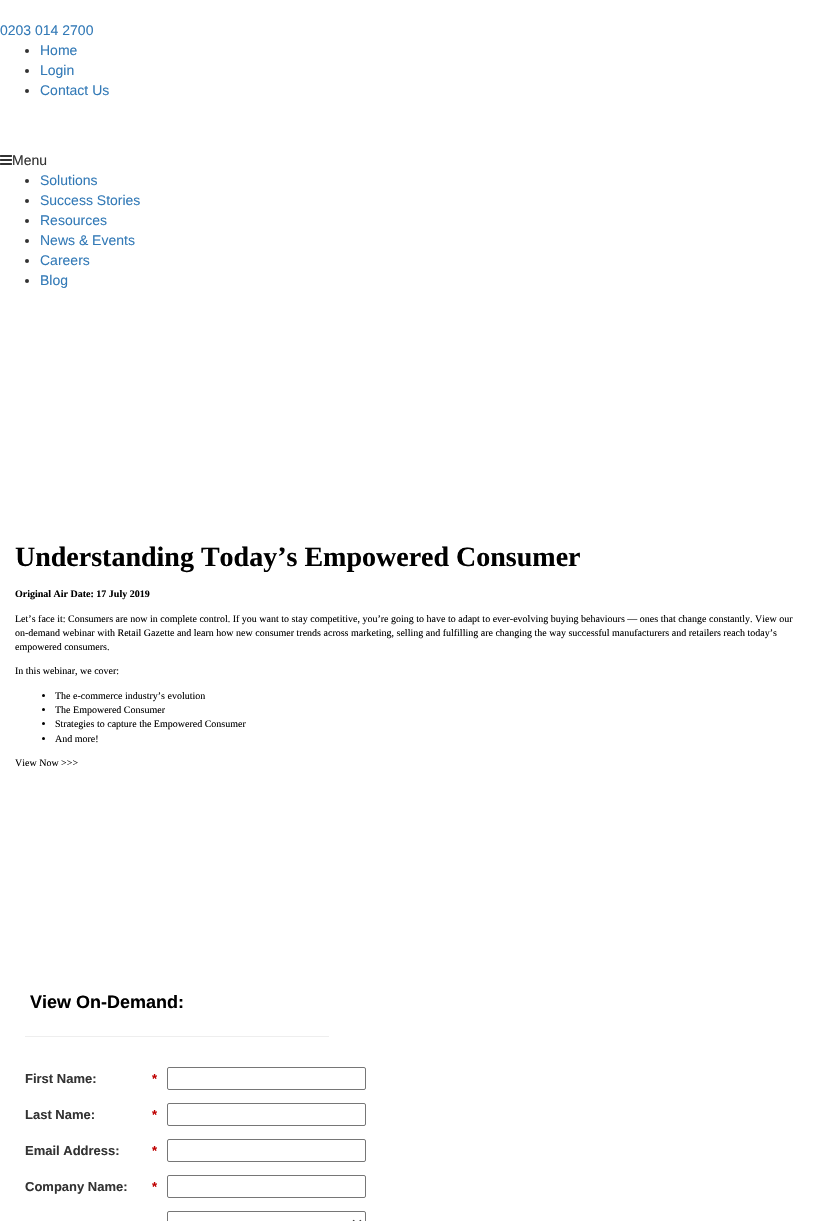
static SkFont makeFont(const char* family, int weight, float size, bool italic = false) {
  SkFontStyle style(weight, SkFontStyle::kNormal_Width,
    italic ? SkFontStyle::kItalic_Slant : SkFontStyle::kUpright_Slant);
  SkFont result(fontMgr->matchFamilyStyle(family, style), size);
  result.setSubpixel(true);
  return result;
}

static void text(SkCanvas* c, const char* s, float x, float y, const SkFont& font, SkColor color) {
  SkPaint ink(SkColor4f::FromColor(color));
  ink.setAntiAlias(true);
  c->drawString(s, x, y, font, ink);
}

static void box(SkCanvas* c, float l, float t, float r, float b, SkColor color) {
  SkPaint ink(SkColor4f::FromColor(color));
  ink.setAntiAlias(true);
  c->drawRect(SkRect::MakeLTRB(l, t, r, b), ink);
}

static void picture(SkCanvas* c, const char* path, float l, float t, float r, float b) {
  auto image = SkImages::DeferredFromEncodedData(SkData::MakeFromFileName(path));
  c->drawImageRect(image, SkRect::MakeLTRB(l, t, r, b), SkSamplingOptions());
}

void draw(SkCanvas* c) {
  SkPaint paint;
  paint.setAntiAlias(true);
  c->clear(0xffffffff);
  SkFont face1 = makeFont("Liberation Sans", 400, 14);
  text(c, "0203 014 2700", 0, 35, face1, 0xff337ab7);
  paint.setColor(0xff333333);
  c->drawCircle(27, 51, 2, paint);
  text(c, "Home", 40, 55, face1, 0xff337ab7);
  c->drawCircle(27, 71, 2, paint);
  text(c, "Login", 40, 75, face1, 0xff337ab7);
  c->drawCircle(27, 91, 2, paint);
  text(c, "Contact Us", 40, 95, face1, 0xff337ab7);
  picture(c, "img_01.png", 0, 155, 12, 165);
  text(c, "Menu", 12, 165, face1, 0xff333333);
  c->drawCircle(27, 181, 2, paint);
  text(c, "Solutions", 40, 185, face1, 0xff337ab7);
  c->drawCircle(27, 201, 2, paint);
  text(c, "Success Stories", 40, 205, face1, 0xff337ab7);
  c->drawCircle(27, 221, 2, paint);
  text(c, "Resources", 40, 225, face1, 0xff337ab7);
  c->drawCircle(27, 241, 2, paint);
  text(c, "News & Events", 40, 245, face1, 0xff337ab7);
  c->drawCircle(27, 261, 2, paint);
  text(c, "Careers", 40, 265, face1, 0xff337ab7);
  c->drawCircle(27, 281, 2, paint);
  text(c, "Blog", 40, 285, face1, 0xff337ab7);
  SkFont face2 = makeFont("Liberation Serif", 700, 28);
  text(c, "Understanding Today’s Empowered Consumer", 15, 566, face2, 0xff000000);
  SkFont face3 = makeFont("Liberation Serif", 700, 10);
  text(c, "Original Air Date: 17 July 2019", 15, 597, face3, 0xff000000);
  SkFont face4 = makeFont("Liberation Serif", 400, 10);
  text(c, "Let’s face it: Consumers are now in complete control. If you want to stay competitive, you’re going to have to adapt to ever-evolving buying behaviours — ones that change constantly. View our", 15, 622, face4, 0xff000000);
  text(c, "on-demand webinar with Retail Gazette and learn how new consumer trends across marketing, selling and fulfilling are changing the way successful manufacturers and retailers reach today’s", 15, 636, face4, 0xff000000);
  text(c, "empowered consumers.", 15, 650, face4, 0xff000000);
  text(c, "In this webinar, we cover:", 15, 674, face4, 0xff000000);
  paint.setColor(0xff000000);
  c->drawCircle(43.5f, 695.5f, 1.5f, paint);
  text(c, "The e-commerce industry’s evolution", 55, 699, face4, 0xff000000);
  c->drawCircle(43.5f, 709.5f, 1.5f, paint);
  text(c, "The Empowered Consumer", 55, 713, face4, 0xff000000);
  c->drawCircle(43.5f, 723.5f, 1.5f, paint);
  text(c, "Strategies to capture the Empowered Consumer", 55, 727, face4, 0xff000000);
  c->drawCircle(43.5f, 738.5f, 1.5f, paint);
  text(c, "And more!", 55, 742, face4, 0xff000000);
  text(c, "View Now >>>", 15, 766, face4, 0xff000000);
  SkFont face5 = makeFont("Liberation Sans", 700, 18);
  text(c, "View On-Demand:", 30, 1008, face5, 0xff000000);
  box(c, 25, 1036, 329, 1037, 0xffeeeeee);
  SkFont face6 = makeFont("Liberation Sans", 700, 13);
  text(c, "First Name:", 25, 1083, face6, 0xff333333);
  text(c, "*", 152, 1083, face6, 0xffbf0000);
  paint.setStyle(SkPaint::kStroke_Style);
  paint.setStrokeWidth(1);
  paint.setColor(0xff767676);
  c->drawRoundRect(SkRect::MakeLTRB(167.5f, 1067.5f, 365.5f, 1089.5f), 1.5f, 1.5f, paint);
  text(c, "Last Name:", 25, 1119, face6, 0xff333333);
  text(c, "*", 152, 1119, face6, 0xffbf0000);
  c->drawRoundRect(SkRect::MakeLTRB(167.5f, 1103.5f, 365.5f, 1125.5f), 1.5f, 1.5f, paint);
  text(c, "Email Address:", 25, 1155, face6, 0xff333333);
  text(c, "*", 152, 1155, face6, 0xffbf0000);
  c->drawRoundRect(SkRect::MakeLTRB(167.5f, 1139.5f, 365.5f, 1161.5f), 1.5f, 1.5f, paint);
  text(c, "Company Name:", 25, 1191, face6, 0xff333333);
  text(c, "*", 152, 1191, face6, 0xffbf0000);
  c->drawRoundRect(SkRect::MakeLTRB(167.5f, 1175.5f, 365.5f, 1197.5f), 1.5f, 1.5f, paint);
  c->drawRoundRect(SkRect::MakeLTRB(167.5f, 1211.5f, 365.5f, 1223.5f), 1.5f, 1.5f, paint);
  paint.setStrokeWidth(2);
  paint.setColor(0xff333333);
  c->drawPath(SkPathBuilder().moveTo(353, 1220.5f).lineTo(357, 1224.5f).lineTo(361, 1220.5f).detach(), paint);
}
